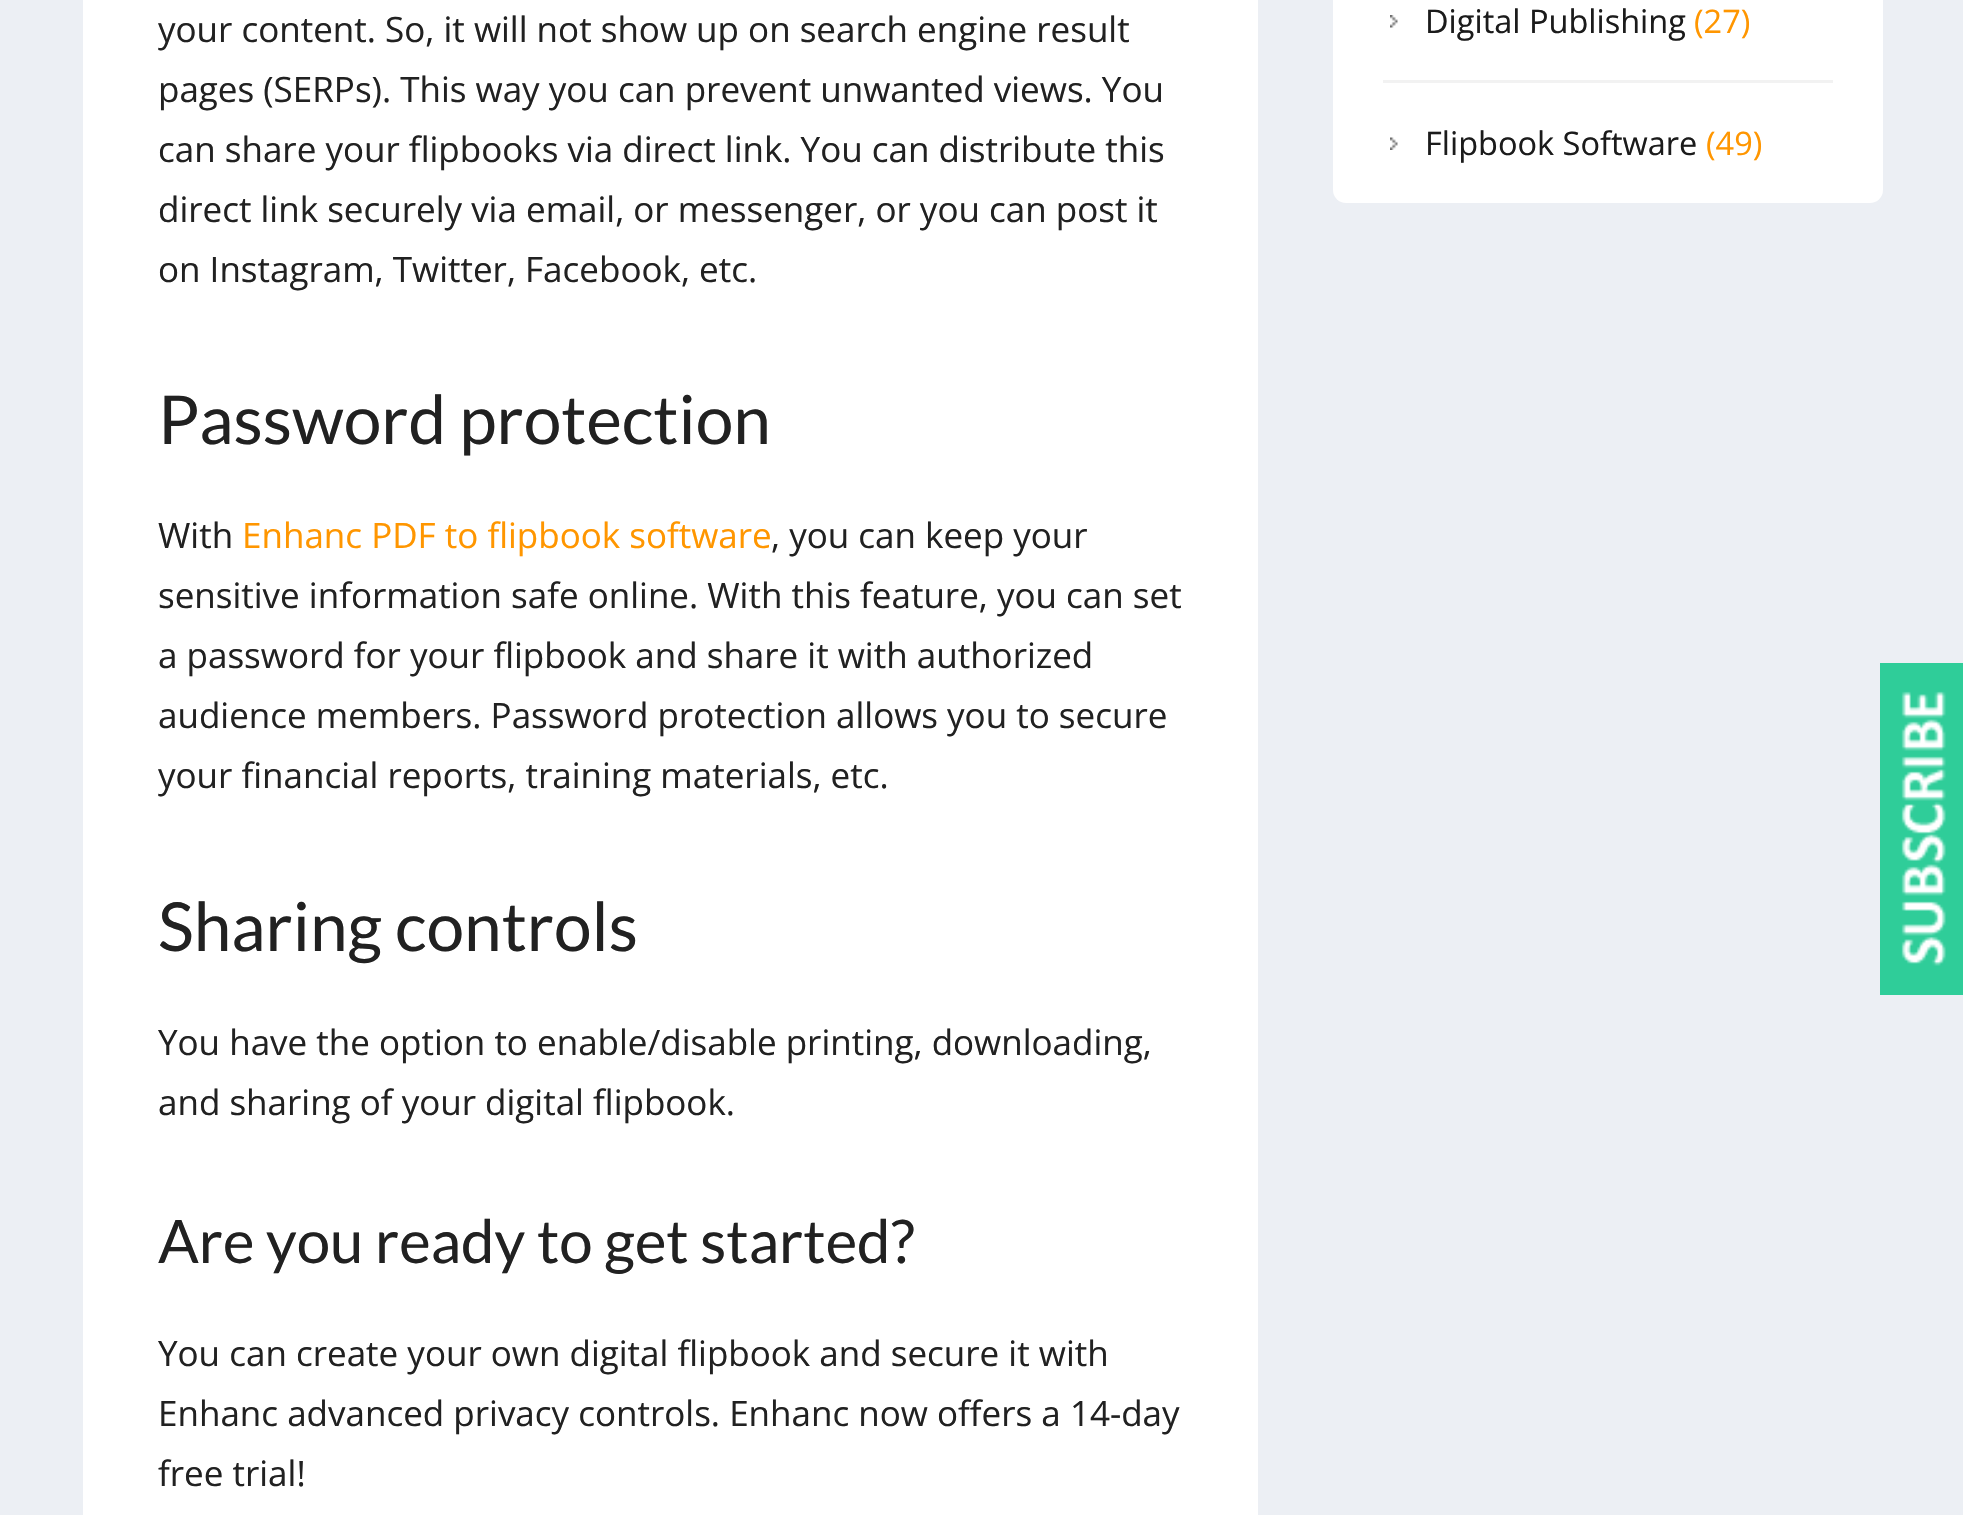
static SkFont makeFont(const char* family, int weight, float size, bool italic = false) {
  SkFontStyle style(weight, SkFontStyle::kNormal_Width,
    italic ? SkFontStyle::kItalic_Slant : SkFontStyle::kUpright_Slant);
  SkFont result(fontMgr->matchFamilyStyle(family, style), size);
  result.setSubpixel(true);
  return result;
}

static void text(SkCanvas* c, const char* s, float x, float y, const SkFont& font, SkColor color) {
  SkPaint ink(SkColor4f::FromColor(color));
  ink.setAntiAlias(true);
  c->drawString(s, x, y, font, ink);
}

static void box(SkCanvas* c, float l, float t, float r, float b, SkColor color) {
  SkPaint ink(SkColor4f::FromColor(color));
  ink.setAntiAlias(true);
  c->drawRect(SkRect::MakeLTRB(l, t, r, b), ink);
}

static void roundBox(SkCanvas* c, float l, float t, float r, float b, float radius, SkColor color) {
  SkPaint ink(SkColor4f::FromColor(color));
  ink.setAntiAlias(true);
  c->drawRoundRect(SkRect::MakeLTRB(l, t, r, b), radius, radius, ink);
}

static void picture(SkCanvas* c, const char* path, float l, float t, float r, float b) {
  auto image = SkImages::DeferredFromEncodedData(SkData::MakeFromFileName(path));
  c->drawImageRect(image, SkRect::MakeLTRB(l, t, r, b), SkSamplingOptions());
}

void draw(SkCanvas* c) {
  SkPaint paint;
  paint.setAntiAlias(true);
  c->clear(0xffeceff4);
  box(c, 83, 0, 1258, 1515, 0xffffffff);
  SkFont face1 = makeFont("Open Sans", 400, 35);
  text(c, "your content. So, it will not show up on search engine result", 158, 42, face1, 0xff212121);
  text(c, "pages (SERPs). This way you can prevent unwanted views. You", 158, 102, face1, 0xff212121);
  text(c, "can share your flipbooks via direct link. You can distribute this", 158, 162, face1, 0xff212121);
  text(c, "direct link securely via email, or messenger, or you can post it", 158, 222, face1, 0xff212121);
  text(c, "on Instagram, Twitter, Facebook, etc.", 158, 282, face1, 0xff212121);
  SkFont face2 = makeFont("Lato", 400, 67.5f);
  text(c, "Password protection", 158, 444, face2, 0xff212121);
  text(c, "With", 158, 548, face1, 0xff212121);
  text(c, "Enhanc PDF to flipbook software", 242, 548, face1, 0xffff9600);
  text(c, ", you can keep your", 771, 548, face1, 0xff212121);
  text(c, "sensitive information safe online. With this feature, you can set", 158, 608, face1, 0xff212121);
  text(c, "a password for your flipbook and share it with authorized", 158, 668, face1, 0xff212121);
  text(c, "audience members. Password protection allows you to secure", 158, 728, face1, 0xff212121);
  text(c, "your financial reports, training materials, etc.", 158, 788, face1, 0xff212121);
  text(c, "Sharing controls", 158, 951, face2, 0xff212121);
  text(c, "You have the option to enable/disable printing, downloading,", 158, 1055, face1, 0xff212121);
  text(c, "and sharing of your digital flipbook.", 158, 1115, face1, 0xff212121);
  SkFont face3 = makeFont("Lato", 400, 60);
  text(c, "Are you ready to get started?", 158, 1263, face3, 0xff212121);
  text(c, "You can create your own digital flipbook and secure it with", 158, 1366, face1, 0xff212121);
  text(c, "Enhanc advanced privacy controls. Enhanc now offers a 14-day", 158, 1426, face1, 0xff212121);
  text(c, "free trial!", 158, 1486, face1, 0xff212121);
  roundBox(c, 1333, -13, 1883, 203, 13, 0xffffffff);
  picture(c, "img_01.png", 1390, 15, 1398, 28);
  SkFont face4 = makeFont("Open Sans", 400, 32.5f);
  text(c, "Digital Publishing", 1425, 33, face4, 0xff1b1b1b);
  text(c, "(27)", 1694, 33, face4, 0xffff9600);
  box(c, 1383, 80, 1833, 83, 0xfff2f2f2);
  picture(c, "img_02.png", 1390, 137, 1398, 150);
  text(c, "Flipbook Software", 1425, 155, face4, 0xff1b1b1b);
  text(c, "(49)", 1706, 155, face4, 0xffff9600);
  box(c, 1880, 663, 1963, 995, 0xff2fcd99);
  picture(c, "img_03.png", 1901, 691, 1946, 966);
}
